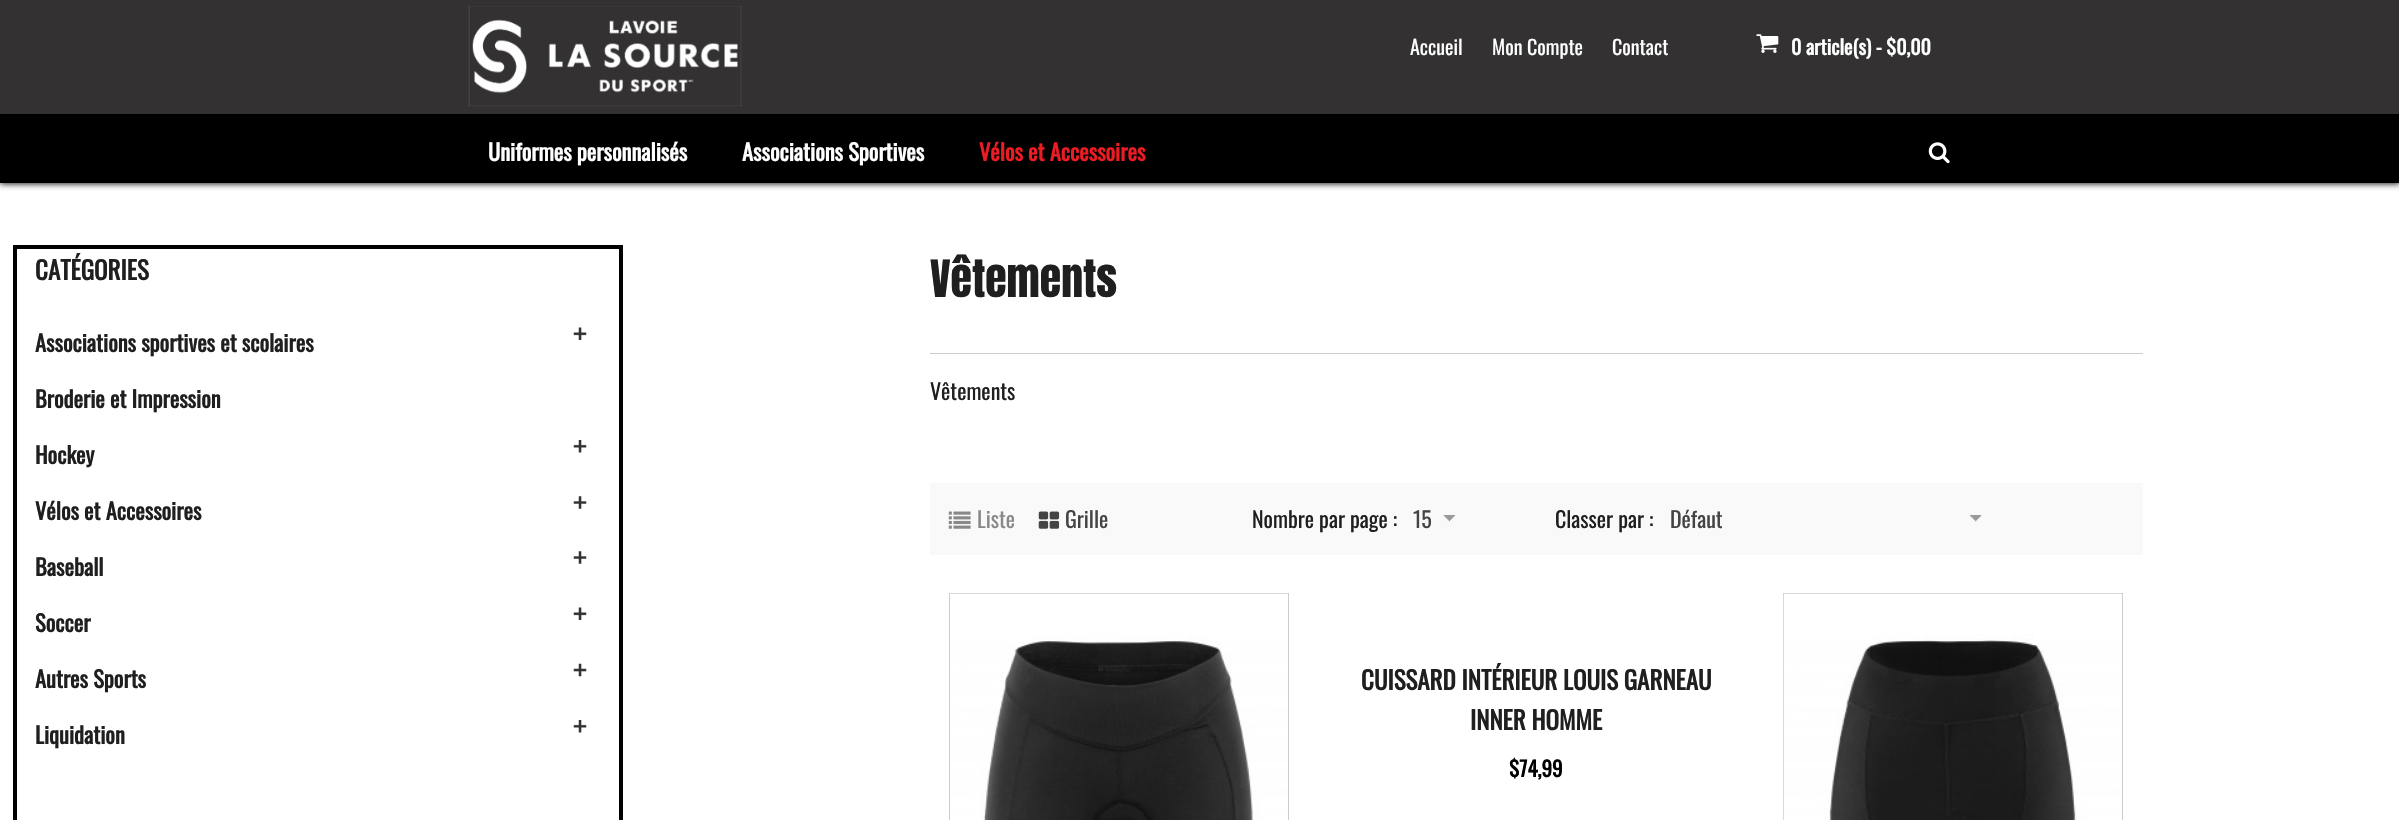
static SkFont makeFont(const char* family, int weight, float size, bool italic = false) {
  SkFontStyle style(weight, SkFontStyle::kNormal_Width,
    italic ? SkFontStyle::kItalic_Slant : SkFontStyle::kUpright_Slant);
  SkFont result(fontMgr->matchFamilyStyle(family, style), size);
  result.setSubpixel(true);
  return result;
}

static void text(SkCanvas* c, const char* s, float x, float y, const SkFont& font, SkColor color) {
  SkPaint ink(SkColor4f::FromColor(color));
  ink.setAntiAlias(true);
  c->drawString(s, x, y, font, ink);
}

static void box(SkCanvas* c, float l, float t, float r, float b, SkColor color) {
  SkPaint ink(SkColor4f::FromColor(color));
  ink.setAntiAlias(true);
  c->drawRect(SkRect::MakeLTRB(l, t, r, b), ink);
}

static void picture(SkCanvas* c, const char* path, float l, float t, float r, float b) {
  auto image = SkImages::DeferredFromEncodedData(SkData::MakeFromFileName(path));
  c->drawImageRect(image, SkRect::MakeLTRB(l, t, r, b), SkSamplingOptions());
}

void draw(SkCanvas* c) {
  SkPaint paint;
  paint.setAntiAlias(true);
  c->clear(0xffffffff);
  paint.setColor(0xff1f1f1f);
  paint.setMaskFilter(SkMaskFilter::MakeBlur(kNormal_SkBlurStyle, 3));
  c->drawRect(SkRect::MakeLTRB(0, 115, 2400, 184), paint);
  paint.setMaskFilter(nullptr);
  box(c, 0, 0, 2399, 114, 0xff333132);
  picture(c, "img_01.png", 468, 6, 742, 107);
  SkFont face1 = makeFont("Oswald", 400, 20);
  text(c, "Accueil", 1410, 55, face1, 0xffffffff);
  text(c, "Mon Compte", 1492, 55, face1, 0xffffffff);
  text(c, "Contact", 1612, 55, face1, 0xffffffff);
  picture(c, "img_02.png", 1756, 34, 1779, 53);
  SkFont face2 = makeFont("Oswald", 700, 20);
  text(c, "0 article(s) - $0,00", 1791, 55, face2, 0xffffffff);
  box(c, 0, 114, 2399, 183, 0xff000000);
  SkFont face3 = makeFont("Oswald", 700, 22.5f);
  text(c, "Uniformes personnalisés", 488, 161, face3, 0xffffffff);
  text(c, "Associations Sportives", 742, 161, face3, 0xffffffff);
  text(c, "Vélos et Accessoires", 979, 161, face3, 0xffed1c24);
  picture(c, "img_03.png", 1928, 142, 1950, 164);
  paint.setStyle(SkPaint::kStroke_Style);
  paint.setStrokeWidth(4);
  paint.setColor(0xff000000);
  c->drawRect(SkRect::MakeLTRB(15, 247, 621, 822), paint);
  SkFont face4 = makeFont("Oswald", 700, 25);
  text(c, "CATÉGORIES", 35, 280, face4, 0xff1f1f1f);
  text(c, "Associations sportives et scolaires", 35, 352, face3, 0xff1f1f1f);
  picture(c, "img_04.png", 573, 327, 587, 340);
  text(c, "Broderie et Impression", 35, 408, face3, 0xff1f1f1f);
  text(c, "Hockey", 35, 464, face3, 0xff1f1f1f);
  picture(c, "img_05.png", 573, 440, 587, 453);
  text(c, "Vélos et Accessoires", 35, 520, face3, 0xff1f1f1f);
  picture(c, "img_06.png", 573, 496, 587, 509);
  text(c, "Baseball", 35, 576, face3, 0xff1f1f1f);
  picture(c, "img_06.png", 573, 551, 587, 564);
  text(c, "Soccer", 35, 632, face3, 0xff1f1f1f);
  picture(c, "img_04.png", 573, 607, 587, 620);
  text(c, "Autres Sports", 35, 688, face3, 0xff1f1f1f);
  picture(c, "img_07.png", 573, 663, 587, 677);
  text(c, "Liquidation", 35, 744, face3, 0xff1f1f1f);
  picture(c, "img_05.png", 573, 720, 587, 733);
  box(c, 930, 353, 2143, 354, 0xffcccccc);
  SkFont face5 = makeFont("Anton", 400, 43.75f);
  text(c, "Vêtements", 930, 297, face5, 0xff1f1f1f);
  SkFont face6 = makeFont("Oswald", 400, 22);
  text(c, "Vêtements", 930, 400, face6, 0xff1f1f1f);
  box(c, 930, 483, 2143, 555, 0xfff9f9f9);
  picture(c, "img_08.png", 948, 511, 971, 529);
  text(c, "Liste", 977, 528, face6, 0xff888888);
  picture(c, "img_09.png", 1038, 511, 1060, 529);
  text(c, "Grille", 1065, 528, face6, 0xff444444);
  text(c, "Nombre par page :", 1252, 528, face6, 0xff1f1f1f);
  picture(c, "img_10.png", 1443, 515, 1455, 522);
  text(c, "15", 1413, 528, face6, 0xff444444);
  text(c, "Classer par :", 1555, 528, face6, 0xff1f1f1f);
  picture(c, "img_11.png", 1970, 515, 1982, 522);
  text(c, "Défaut", 1670, 528, face6, 0xff444444);
  paint.setStrokeWidth(1);
  paint.setColor(0xffcccccc);
  c->drawRect(SkRect::MakeLTRB(949.5f, 593.5f, 1288.5f, 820.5f), paint);
  picture(c, "img_12.png", 950, 593, 1288, 820);
  text(c, "CUISSARD INTÉRIEUR LOUIS GARNEAU", 1361, 690, face4, 0xff1f1f1f);
  text(c, "INNER HOMME", 1470, 730, face4, 0xff1f1f1f);
  SkFont face7 = makeFont("Oswald", 700, 21);
  text(c, "$74,99", 1509, 777, face7, 0xff000000);
  c->drawRect(SkRect::MakeLTRB(1783.5f, 593.5f, 2122.5f, 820.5f), paint);
  picture(c, "img_13.png", 1783, 593, 2121, 820);
}
